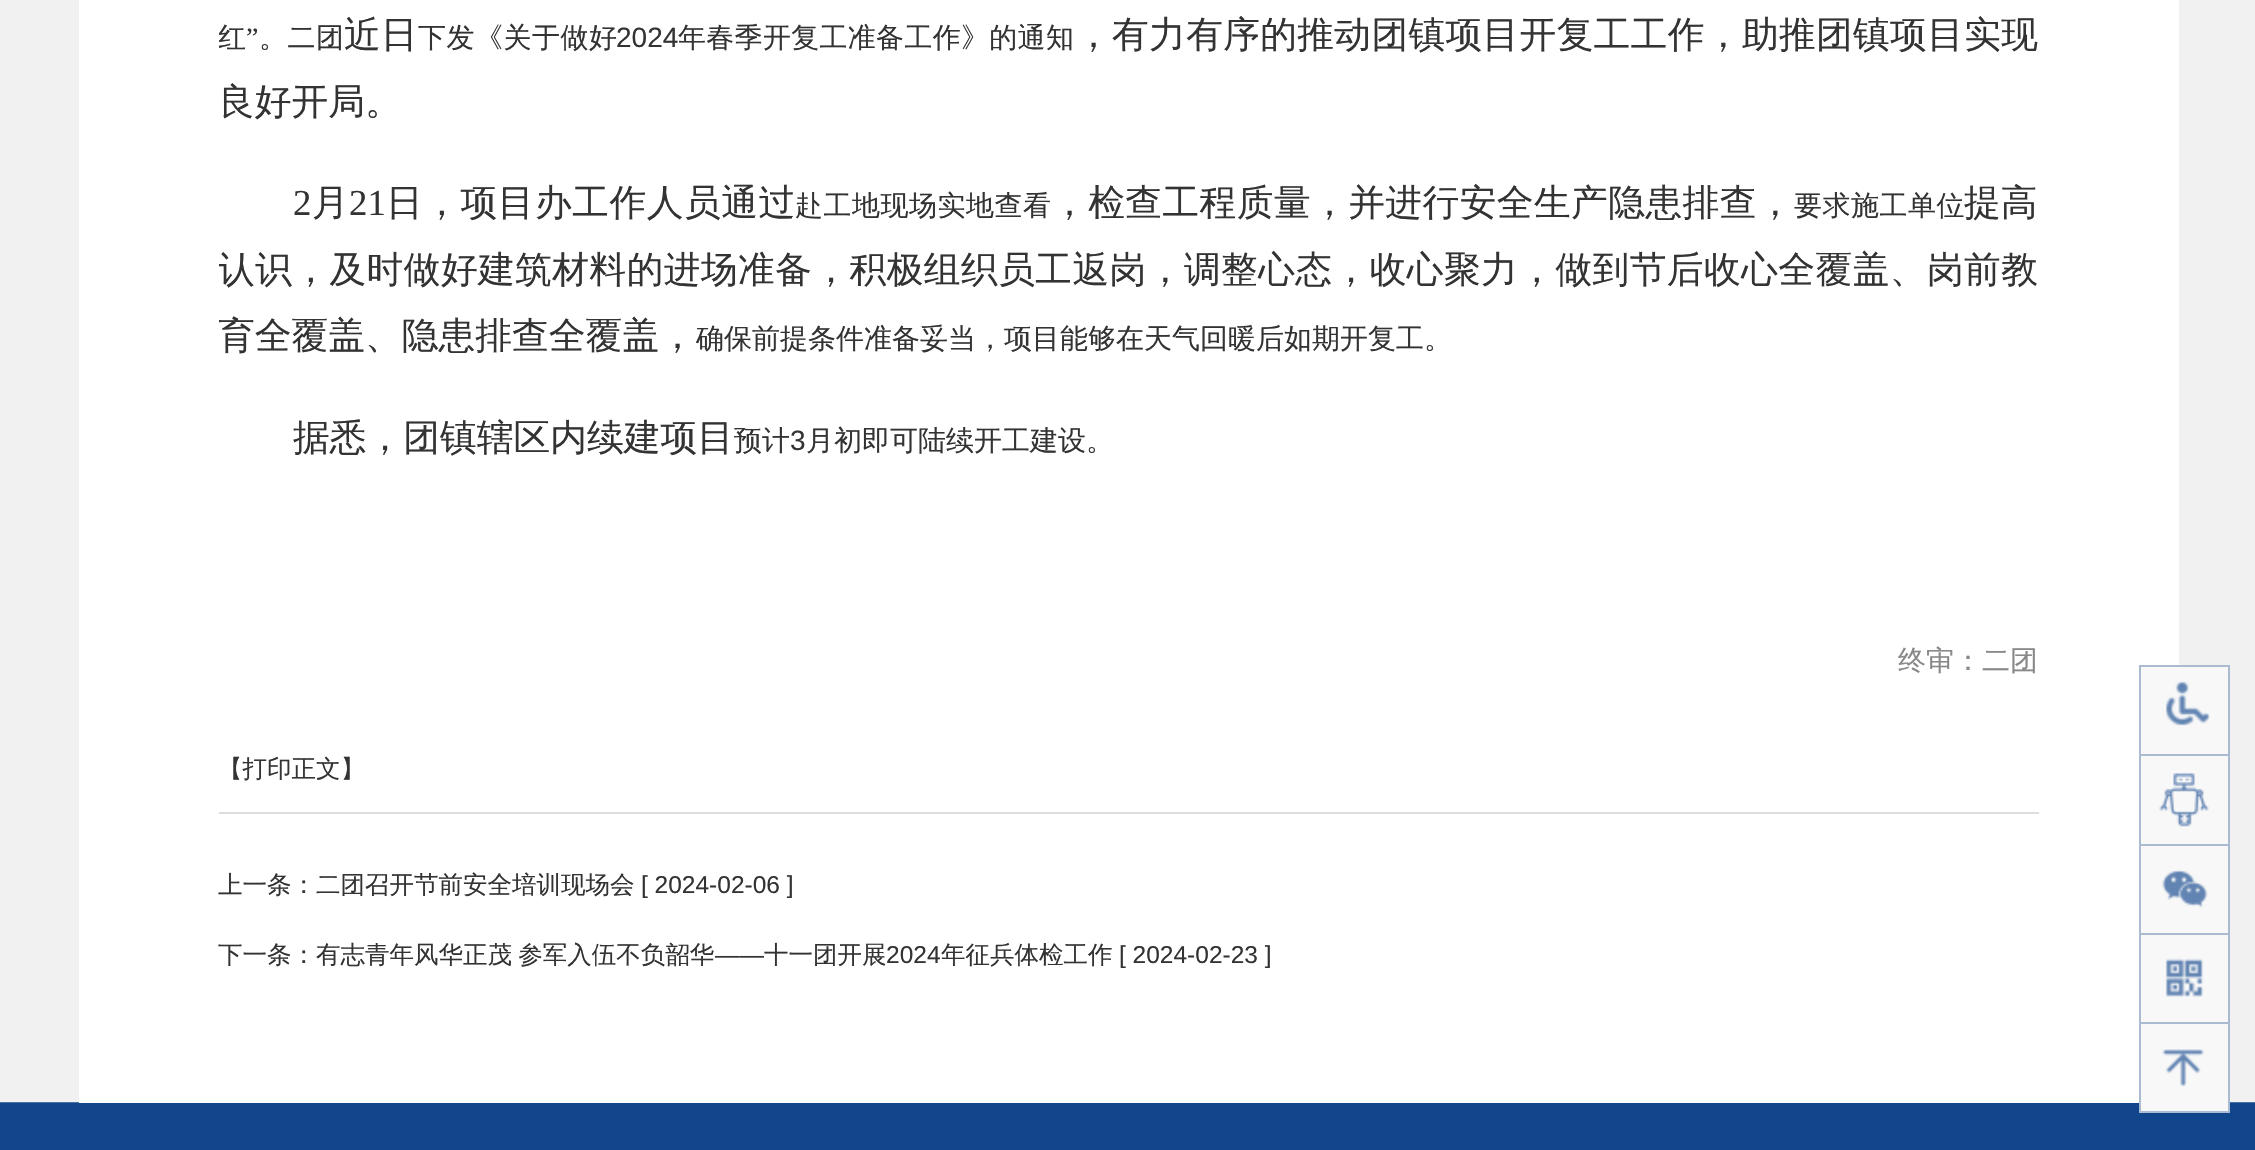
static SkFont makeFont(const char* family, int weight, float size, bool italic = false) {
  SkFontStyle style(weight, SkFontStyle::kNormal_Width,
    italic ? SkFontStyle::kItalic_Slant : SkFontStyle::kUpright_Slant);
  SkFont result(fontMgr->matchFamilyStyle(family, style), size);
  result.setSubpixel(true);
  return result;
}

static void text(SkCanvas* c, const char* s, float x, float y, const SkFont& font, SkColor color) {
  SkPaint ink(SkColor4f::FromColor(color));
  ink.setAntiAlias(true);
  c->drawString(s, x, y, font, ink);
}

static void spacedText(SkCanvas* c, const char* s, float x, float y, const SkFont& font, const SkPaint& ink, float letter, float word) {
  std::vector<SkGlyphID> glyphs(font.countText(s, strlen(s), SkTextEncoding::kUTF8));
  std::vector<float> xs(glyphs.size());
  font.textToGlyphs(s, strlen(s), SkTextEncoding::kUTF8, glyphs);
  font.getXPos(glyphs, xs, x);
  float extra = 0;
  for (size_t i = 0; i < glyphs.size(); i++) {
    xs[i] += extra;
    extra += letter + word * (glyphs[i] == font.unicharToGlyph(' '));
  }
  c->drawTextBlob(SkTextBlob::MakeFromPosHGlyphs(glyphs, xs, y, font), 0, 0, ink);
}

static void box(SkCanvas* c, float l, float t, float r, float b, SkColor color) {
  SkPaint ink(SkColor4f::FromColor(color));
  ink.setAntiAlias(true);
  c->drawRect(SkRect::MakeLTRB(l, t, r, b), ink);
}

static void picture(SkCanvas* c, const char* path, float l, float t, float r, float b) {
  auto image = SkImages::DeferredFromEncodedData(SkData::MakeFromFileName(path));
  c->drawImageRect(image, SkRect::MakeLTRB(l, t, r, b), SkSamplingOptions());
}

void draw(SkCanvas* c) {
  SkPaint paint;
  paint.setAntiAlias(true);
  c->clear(0xfff1f1f1);
  box(c, 0, 1102, 2255, 1103, 0xff4b71a5);
  box(c, 79, 0, 2179, 1103, 0xffffffff);
  c->save();
  c->clipRect(SkRect::MakeLTRB(219, 0, 2039, 634));
  SkFont face1 = makeFont("WenQuanYi Zen Hei", 500, 28);
  text(c, "红", 218, 47, face1, 0xff333333);
  c->restore();
  SkFont face2 = makeFont("Liberation Serif", 400, 28);
  text(c, "”", 246, 47, face2, 0xff333333);
  paint.setColor(0xff333333);
  spacedText(c, "。二团", 259, 47, face1, paint, 0.5f, 0);
  SkFont face3 = makeFont("WenQuanYi Zen Hei", 500, 36.75f);
  text(c, "近日", 344, 47, face3, 0xff333333);
  spacedText(c, "下发《关于做好", 418, 47, face1, paint, 0.5f, 0);
  SkFont face4 = makeFont("Liberation Sans", 400, 28);
  text(c, "2024", 616, 47, face4, 0xff333333);
  spacedText(c, "年春季开复工准备工作》的通知", 678, 47, face1, paint, 0.3f, 0);
  spacedText(c, "，有力有序的推动团镇项目开复工工作，助推团镇项目实现", 1075, 47, face3, paint, 0.3f, 0);
  text(c, "良好开局。", 218, 114, face3, 0xff333333);
  SkFont face5 = makeFont("Liberation Serif", 400, 36.75f);
  text(c, "2", 293, 215, face5, 0xff333333);
  text(c, "月", 312, 215, face3, 0xff333333);
  text(c, "21", 349, 215, face5, 0xff333333);
  spacedText(c, "日，项目办工作人员通过", 386, 215, face3, paint, 0.5f, 0);
  spacedText(c, "赴工地现场实地查看", 795, 215, face1, paint, 0.5f, 0);
  spacedText(c, "，检查工程质量，并进行安全生产隐患排查，", 1051, 215, face3, paint, 0.4f, 0);
  spacedText(c, "要求施工单位", 1794, 215, face1, paint, 0.5f, 0);
  text(c, "提高", 1964, 215, face3, 0xff333333);
  c->save();
  c->clipRect(SkRect::MakeLTRB(219, 0, 2039, 634));
  spacedText(c, "认识，及时做好建筑材料的进场准备，积极组织员工返岗，调整心态，收心聚力，做到节后收心全覆盖、岗前教", 218, 282, face3, paint, 0.4f, 0);
  text(c, "育全覆盖、隐患排查全覆盖，", 218, 348, face3, 0xff333333);
  c->restore();
  text(c, "确保前提条件准备妥当，项目能够在天气回暖后如期开复工。", 696, 348, face1, 0xff333333);
  text(c, "据悉，团镇辖区内续建项目", 293, 450, face3, 0xff333333);
  text(c, "预计", 734, 450, face1, 0xff333333);
  text(c, "3", 790, 450, face4, 0xff333333);
  text(c, "月初即可陆续开工建设。", 806, 450, face1, 0xff333333);
  text(c, "终审：二团", 1898, 670, face1, 0xff888888);
  box(c, 219, 812, 2039, 814, 0xffdddddd);
  SkFont face6 = makeFont("WenQuanYi Zen Hei", 500, 24.5f);
  text(c, "【打印正文】", 218, 777, face6, 0xff333333);
  text(c, "上一条：二团召开节前安全培训现场会", 218, 893, face6, 0xff333333);
  SkFont face7 = makeFont("Liberation Sans", 400, 24.5f);
  text(c, "[ 2024-02-06 ]", 641, 893, face7, 0xff333333);
  text(c, "下一条：", 218, 963, face6, 0xff333333);
  spacedText(c, "有志青年风华正茂 参军入伍不负韶华", 316, 963, face6, paint, 0, -1);
  text(c, "——", 715, 963, face7, 0xff333333);
  text(c, "十一团开展", 764, 963, face6, 0xff333333);
  text(c, "2024", 886, 963, face7, 0xff333333);
  text(c, "年征兵体检工作", 941, 963, face6, 0xff333333);
  text(c, "[ 2024-02-23 ]", 1119, 963, face7, 0xff333333);
  box(c, 0, 1103, 2255, 1150, 0xff12468c);
  paint.setColor(0xfff8f8f8);
  c->drawRect(SkRect::MakeLTRB(2140, 666, 2229, 1112), paint);
  paint.setStyle(SkPaint::kStroke_Style);
  paint.setStrokeWidth(2);
  paint.setColor(0xffa9bad1);
  c->drawRect(SkRect::MakeLTRB(2140, 666, 2229, 1112), paint);
  picture(c, "img_01.png", 2165, 681, 2210, 726);
  box(c, 2140, 754, 2228, 756, 0xffa9bad1);
  picture(c, "img_02.png", 2159, 773, 2209, 827);
  box(c, 2140, 844, 2228, 846, 0xffa9bad1);
  picture(c, "img_03.png", 2162, 869, 2208, 908);
  box(c, 2140, 933, 2228, 935, 0xffa9bad1);
  picture(c, "img_04.png", 2165, 958, 2204, 997);
  box(c, 2140, 1022, 2228, 1024, 0xffa9bad1);
  picture(c, "img_05.png", 2162, 1049, 2204, 1087);
}
